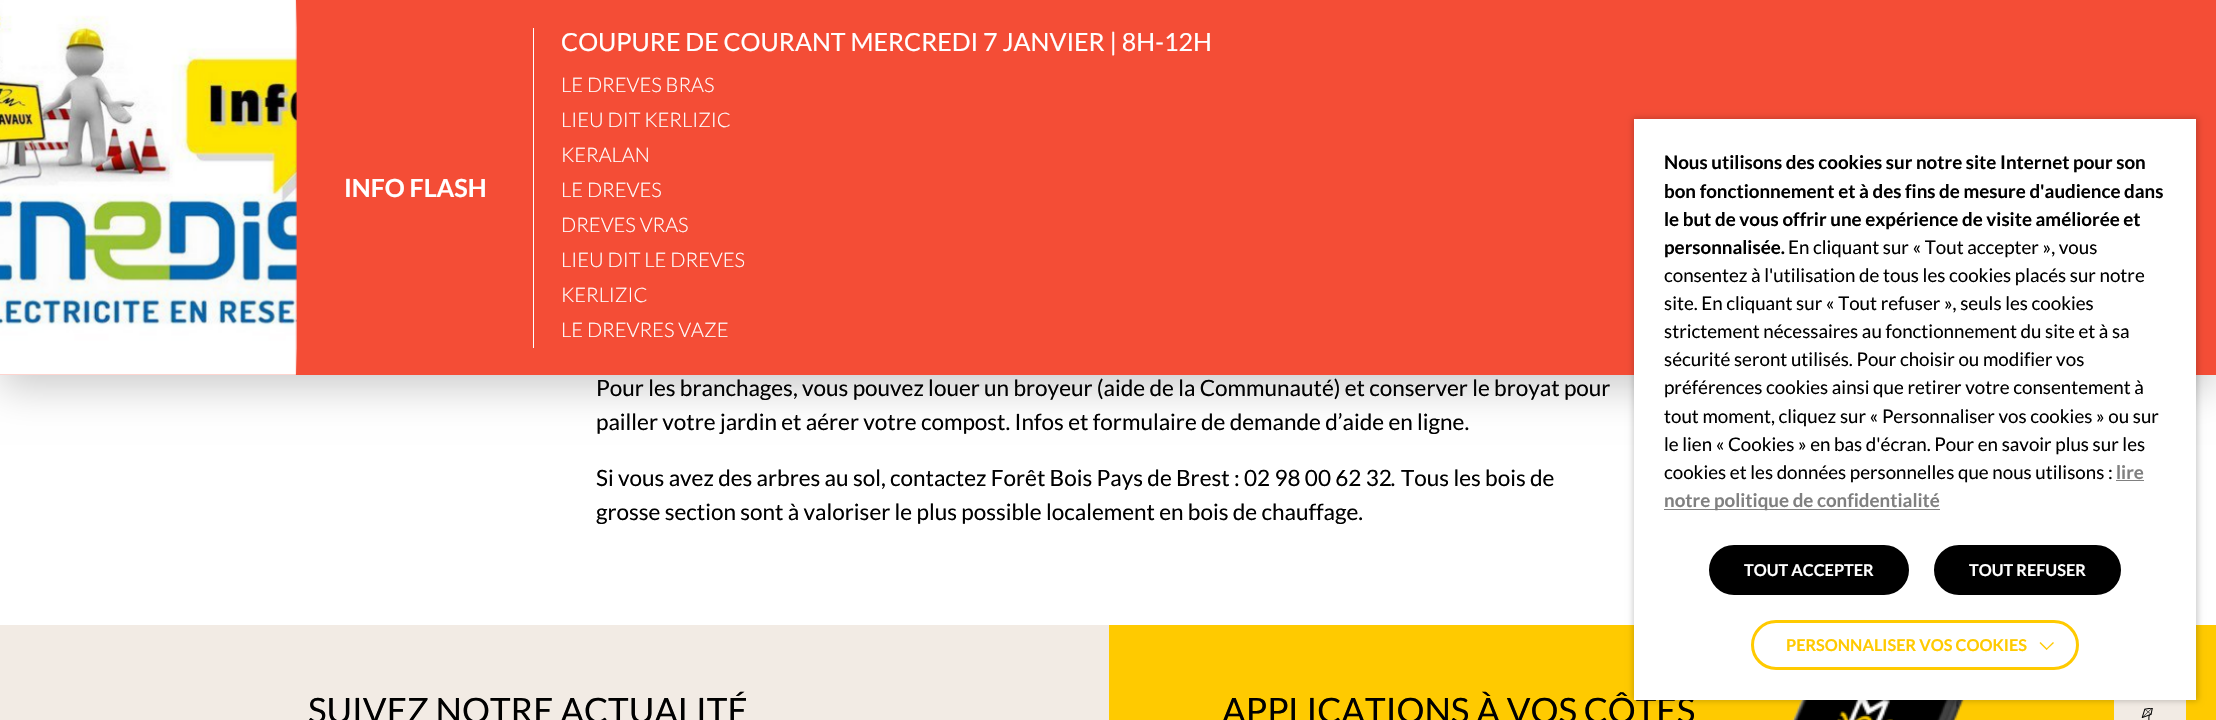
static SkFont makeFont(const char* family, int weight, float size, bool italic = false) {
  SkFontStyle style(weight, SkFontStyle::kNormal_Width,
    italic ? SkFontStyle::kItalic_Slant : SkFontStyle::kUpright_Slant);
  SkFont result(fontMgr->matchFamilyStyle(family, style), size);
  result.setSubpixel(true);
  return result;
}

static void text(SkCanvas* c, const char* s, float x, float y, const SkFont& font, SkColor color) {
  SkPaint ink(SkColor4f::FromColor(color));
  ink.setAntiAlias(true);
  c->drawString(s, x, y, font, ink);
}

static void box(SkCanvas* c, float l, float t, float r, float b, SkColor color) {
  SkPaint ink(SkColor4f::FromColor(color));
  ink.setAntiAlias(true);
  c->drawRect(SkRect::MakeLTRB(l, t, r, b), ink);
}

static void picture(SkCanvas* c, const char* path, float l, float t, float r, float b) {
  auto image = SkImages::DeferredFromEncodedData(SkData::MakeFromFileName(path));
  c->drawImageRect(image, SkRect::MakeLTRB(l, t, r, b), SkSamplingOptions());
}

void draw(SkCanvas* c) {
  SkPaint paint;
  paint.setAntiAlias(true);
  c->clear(0xffffffff);
  paint.setColor(0x33000000);
  paint.setMaskFilter(SkMaskFilter::MakeBlur(kNormal_SkBlurStyle, 19));
  c->drawRect(SkRect::MakeLTRB(0, 13, 2216, 388), paint);
  paint.setMaskFilter(nullptr);
  box(c, 0, 0, 2216, 375, 0xfff44d36);
  picture(c, "img_01.png", 0, 0, 297, 375);
  {
    const SkColor colors[] = {0xfff44d36, 0x00f44d36};
    const float stops[] = {0, 1};
    const SkPoint ends[] = {{1009, 0}, {1009, 28}};
    paint.setShader(SkGradientShader::MakeLinear(ends, colors, stops, 2, SkTileMode::kClamp));
    paint.setAlpha(255);
  }
  c->drawRect(SkRect::MakeLTRB(296, 0, 297, 27), paint);
  SkFont face1 = makeFont("Lato", 700, 25);
  text(c, "INFO FLASH", 344, 197, face1, 0xffffffff);
  box(c, 533, 28, 534, 348, 0xffffffff);
  SkFont face2 = makeFont("Lato", 400, 25);
  text(c, "COUPURE DE COURANT MERCREDI 7 JANVIER | 8H-12H", 561, 51, face2, 0xffffffff);
  SkFont face3 = makeFont("Lato", 300, 20);
  text(c, "LE DREVES BRAS", 561, 92, face3, 0xffffffff);
  text(c, "LIEU DIT KERLIZIC", 561, 127, face3, 0xffffffff);
  text(c, "KERALAN", 561, 162, face3, 0xffffffff);
  text(c, "LE DREVES", 561, 197, face3, 0xffffffff);
  text(c, "DREVES VRAS", 561, 232, face3, 0xffffffff);
  text(c, "LIEU DIT LE DREVES", 561, 267, face3, 0xffffffff);
  text(c, "KERLIZIC", 561, 302, face3, 0xffffffff);
  text(c, "LE DREVRES VAZE", 561, 337, face3, 0xffffffff);
  {
    const SkColor colors[] = {0xfff44d36, 0x00f44d36};
    const float stops[] = {0, 1};
    const SkPoint ends[] = {{1009, 375}, {1009, 348}};
    paint.setShader(SkGradientShader::MakeLinear(ends, colors, stops, 2, SkTileMode::kClamp));
    paint.setAlpha(255);
  }
  c->drawRect(SkRect::MakeLTRB(296, 349, 297, 375), paint);
  SkFont face4 = makeFont("Lato", 400, 22.5f);
  text(c, "Pour les branchages, vous pouvez louer un broyeur (aide de la Communauté) et conserver le broyat pour", 596, 396, face4, 0xff000000);
  text(c, "pailler votre jardin et aérer votre compost. Infos et formulaire de demande d’aide en ligne.", 596, 430, face4, 0xff000000);
  text(c, "Si vous avez des arbres au sol, contactez Forêt Bois Pays de Brest : 02 98 00 62 32", 596, 486, face4, 0xff000000);
  SkFont face5 = makeFont("Lato", 400, 22.5f, true);
  text(c, ".", 1391, 486, face5, 0xff000000);
  text(c, "Tous les bois de", 1401, 486, face4, 0xff000000);
  text(c, "grosse section sont à valoriser le plus possible localement en bois de chauffage.", 596, 520, face4, 0xff000000);
  box(c, 1109, 625, 2216, 720, 0xffffca00);
  box(c, 2114, 700, 2186, 720, 0xfff2ebe4);
  picture(c, "img_02.png", 2141, 708, 2153, 720);
  box(c, 0, 625, 1109, 720, 0xfff2ebe4);
  SkFont face6 = makeFont("Lato", 400, 35);
  text(c, "SUIVEZ NOTRE ACTUALITÉ", 308, 723, face6, 0xff000000);
  text(c, "APPLICATIONS À VOS CÔTÉS", 1222, 723, face6, 0xff000000);
  picture(c, "img_03.png", 1792, 700, 1965, 720);
  paint.setShader(nullptr);
  paint.setColor(0x33000000);
  paint.setMaskFilter(SkMaskFilter::MakeBlur(kNormal_SkBlurStyle, 3));
  c->drawRect(SkRect::MakeLTRB(1633, 118, 2198, 701), paint);
  paint.setMaskFilter(nullptr);
  box(c, 1634, 119, 2196, 700, 0xffffffff);
  SkFont face7 = makeFont("Lato", 700, 18.75f);
  text(c, "Nous utilisons des cookies sur notre site Internet pour son", 1664, 169, face7, 0xff000000);
  text(c, "bon fonctionnement et à des fins de mesure d'audience dans", 1664, 198, face7, 0xff000000);
  text(c, "le but de vous offrir une expérience de visite améliorée et", 1664, 226, face7, 0xff000000);
  text(c, "personnalisée.", 1664, 254, face7, 0xff000000);
  SkFont face8 = makeFont("Lato", 400, 18.75f);
  text(c, "En cliquant sur « Tout accepter », vous", 1788, 254, face8, 0xff000000);
  text(c, "consentez à l'utilisation de tous les cookies placés sur notre", 1664, 282, face8, 0xff000000);
  text(c, "site. En cliquant sur « Tout refuser », seuls les cookies", 1664, 310, face8, 0xff000000);
  text(c, "strictement nécessaires au fonctionnement du site et à sa", 1664, 338, face8, 0xff000000);
  text(c, "sécurité seront utilisés. Pour choisir ou modifier vos", 1664, 366, face8, 0xff000000);
  text(c, "préférences cookies ainsi que retirer votre consentement à", 1664, 394, face8, 0xff000000);
  text(c, "tout moment, cliquez sur « Personnaliser vos cookies » ou sur", 1664, 423, face8, 0xff000000);
  text(c, "le lien « Cookies » en bas d'écran. Pour en savoir plus sur les", 1664, 451, face8, 0xff000000);
  text(c, "cookies et les données personnelles que nous utilisons :", 1664, 479, face8, 0xff000000);
  text(c, "lire", 2116, 479, face7, 0xff808080);
  box(c, 2116, 480, 2144, 481, 0xff808080);
  box(c, 1664, 509, 1940, 510, 0xff808080);
  text(c, "notre politique de confidentialité", 1664, 507, face7, 0xff808080);
  paint.setColor(0xff000000);
  c->drawRoundRect(SkRect::MakeLTRB(1710.5f, 546.5f, 1907.5f, 593.5f), 23.5f, 23.5f, paint);
  paint.setStyle(SkPaint::kStroke_Style);
  paint.setStrokeWidth(3);
  c->drawRoundRect(SkRect::MakeLTRB(1710.5f, 546.5f, 1907.5f, 593.5f), 23.5f, 23.5f, paint);
  SkFont face9 = makeFont("Lato", 700, 16.25f);
  text(c, "TOUT ACCEPTER", 1744, 576, face9, 0xffffffff);
  paint.setStyle(SkPaint::kFill_Style);
  c->drawRoundRect(SkRect::MakeLTRB(1935.5f, 546.5f, 2119.5f, 593.5f), 23.5f, 23.5f, paint);
  paint.setStyle(SkPaint::kStroke_Style);
  c->drawRoundRect(SkRect::MakeLTRB(1935.5f, 546.5f, 2119.5f, 593.5f), 23.5f, 23.5f, paint);
  text(c, "TOUT REFUSER", 1969, 576, face9, 0xffffffff);
  paint.setColor(0xffffca00);
  c->drawRoundRect(SkRect::MakeLTRB(1752.5f, 621.5f, 2077.5f, 668.5f), 23.5f, 23.5f, paint);
  text(c, "PERSONNALISER VOS COOKIES", 1786, 651, face9, 0xffffca00);
  paint.setStyle(SkPaint::kFill_Style);
  c->drawPath(SkPathBuilder().moveTo(2054, 643).lineTo(2046.5f, 650).lineTo(2046, 649).lineTo(2053, 642).close().detach(), paint);
  c->drawPath(SkPathBuilder().moveTo(2047.5f, 649).lineTo(2046.5f, 650).lineTo(2039.5f, 643).lineTo(2040.5f, 642).close().detach(), paint);
}
